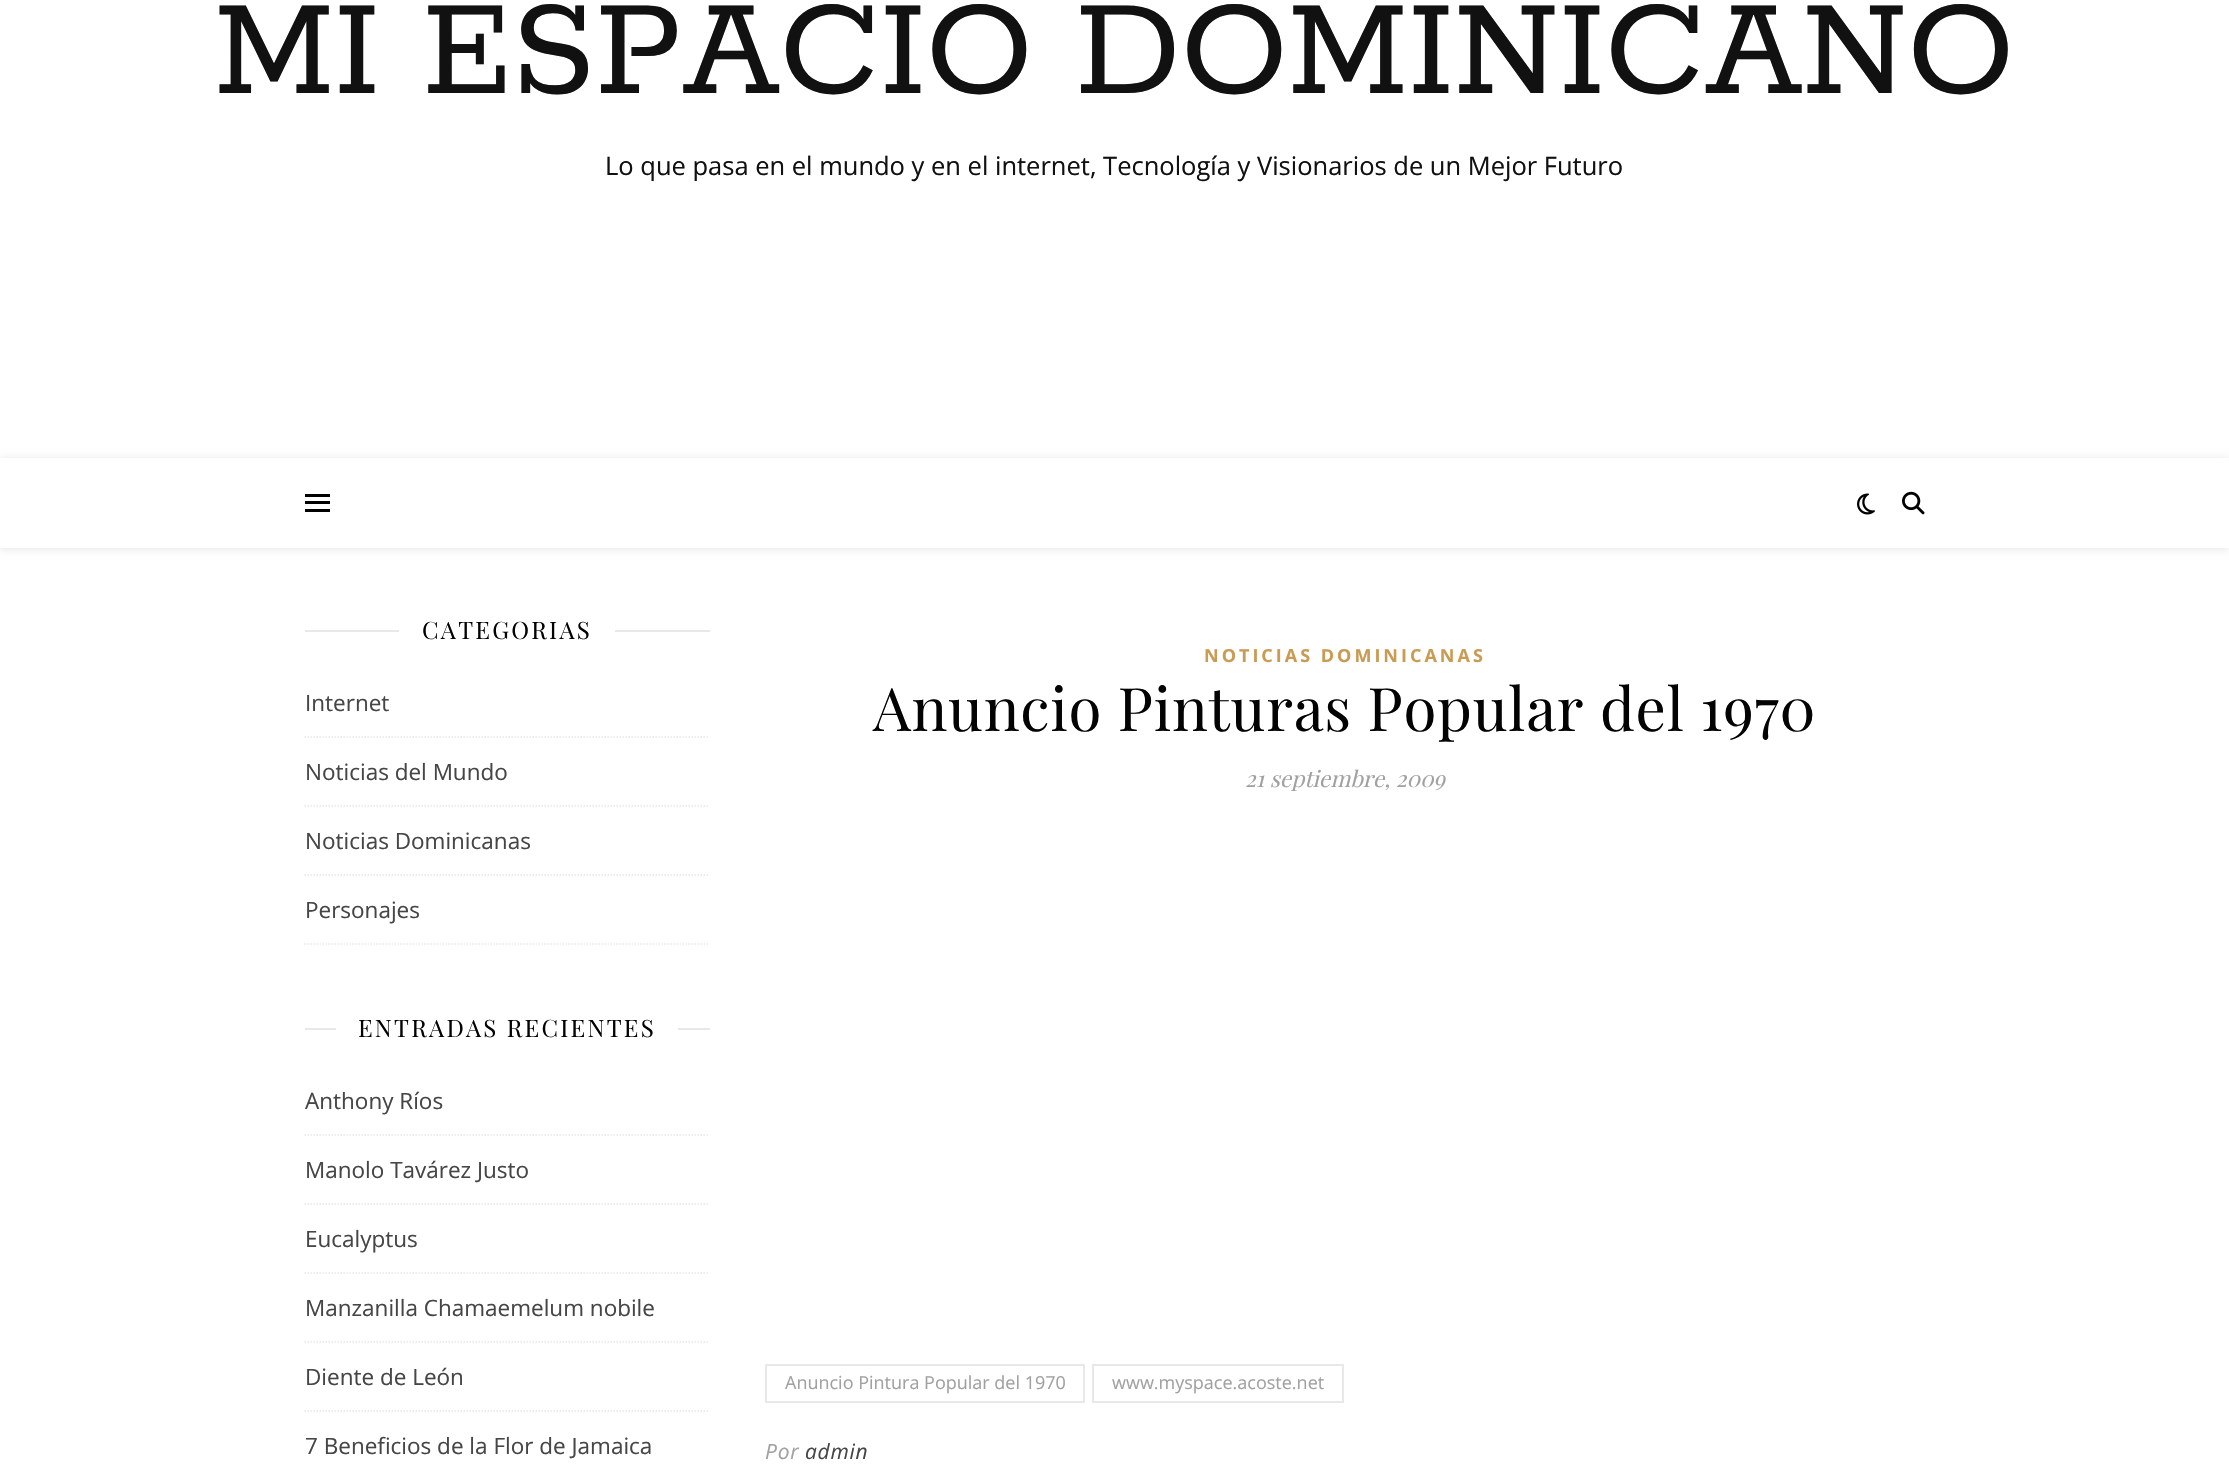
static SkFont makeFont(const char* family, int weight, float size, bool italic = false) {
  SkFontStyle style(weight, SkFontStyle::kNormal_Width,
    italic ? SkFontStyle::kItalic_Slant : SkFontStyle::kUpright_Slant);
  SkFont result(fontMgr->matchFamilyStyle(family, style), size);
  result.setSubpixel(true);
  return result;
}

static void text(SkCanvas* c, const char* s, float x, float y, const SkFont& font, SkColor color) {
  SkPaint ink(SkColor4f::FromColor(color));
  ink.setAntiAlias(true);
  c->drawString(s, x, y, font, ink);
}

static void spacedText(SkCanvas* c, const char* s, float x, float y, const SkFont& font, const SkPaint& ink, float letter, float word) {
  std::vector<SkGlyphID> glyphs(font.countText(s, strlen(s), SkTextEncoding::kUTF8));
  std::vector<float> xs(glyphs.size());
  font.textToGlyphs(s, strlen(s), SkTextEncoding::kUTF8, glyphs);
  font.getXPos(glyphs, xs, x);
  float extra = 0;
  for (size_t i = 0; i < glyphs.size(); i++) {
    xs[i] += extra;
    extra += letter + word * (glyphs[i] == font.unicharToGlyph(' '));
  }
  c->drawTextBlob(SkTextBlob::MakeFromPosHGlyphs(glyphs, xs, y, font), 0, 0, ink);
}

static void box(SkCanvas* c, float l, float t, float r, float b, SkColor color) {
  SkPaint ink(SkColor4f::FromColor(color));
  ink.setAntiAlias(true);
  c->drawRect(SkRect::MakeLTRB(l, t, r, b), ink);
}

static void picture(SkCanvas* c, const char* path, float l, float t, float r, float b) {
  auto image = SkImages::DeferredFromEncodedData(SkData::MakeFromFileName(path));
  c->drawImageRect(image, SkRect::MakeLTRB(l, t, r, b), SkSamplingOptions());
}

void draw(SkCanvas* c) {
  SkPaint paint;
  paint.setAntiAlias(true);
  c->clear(0xffffffff);
  SkFont face1 = makeFont("Rokkitt", 600, 150);
  text(c, "MI ESPACIO DOMINICANO", 214, 93, face1, 0xff111111);
  SkFont face2 = makeFont("Open Sans", 400, 25.5f);
  text(c, "Lo que pasa en el mundo y en el internet, Tecnología y Visionarios de un Mejor Futuro", 605, 175, face2, 0xff111111);
  paint.setColor(0x1a000000);
  paint.setMaskFilter(SkMaskFilter::MakeBlur(kNormal_SkBlurStyle, 4));
  c->drawRect(SkRect::MakeLTRB(0, 459, 2229, 549), paint);
  paint.setMaskFilter(nullptr);
  box(c, 0, 458, 2229, 548, 0xffffffff);
  box(c, 305, 494, 330, 497, 0xff000000);
  box(c, 305, 501, 330, 504, 0xff000000);
  box(c, 305, 509, 330, 512, 0xff000000);
  picture(c, "img_01.png", 1857, 493, 1875, 515);
  picture(c, "img_02.png", 1902, 491, 1925, 515);
  box(c, 305, 630, 399, 632, 0xffe8e8e8);
  SkFont face3 = makeFont("Playfair Display", 400, 24);
  paint.setColor(0xff030303);
  spacedText(c, "CATEGORIAS", 422, 639, face3, paint, 2.25f, 0);
  box(c, 615, 630, 710, 632, 0xffe8e8e8);
  paint.setStyle(SkPaint::kStroke_Style);
  paint.setStrokeWidth(1.5f);
  paint.setColor(0xffe8e8e8);
  paint.setPathEffect(SkDashPathEffect::Make({{1.5f, 1.5f}}, 0));
  c->drawPath(SkPathBuilder().moveTo(304.5f, 737).lineTo(709.5f, 737).detach(), paint);
  paint.setPathEffect(nullptr);
  SkFont face4 = makeFont("Open Sans", 400, 22.5f);
  text(c, "Internet", 305, 711, face4, 0xff464646);
  paint.setPathEffect(SkDashPathEffect::Make({{1.5f, 1.5f}}, 0));
  c->drawPath(SkPathBuilder().moveTo(304.5f, 806).lineTo(709.5f, 806).detach(), paint);
  paint.setPathEffect(nullptr);
  text(c, "Noticias del Mundo", 305, 780, face4, 0xff464646);
  paint.setPathEffect(SkDashPathEffect::Make({{1.5f, 1.5f}}, 0));
  c->drawPath(SkPathBuilder().moveTo(304.5f, 875).lineTo(709.5f, 875).detach(), paint);
  paint.setPathEffect(nullptr);
  text(c, "Noticias Dominicanas", 305, 849, face4, 0xff464646);
  paint.setPathEffect(SkDashPathEffect::Make({{1.5f, 1.5f}}, 0));
  c->drawPath(SkPathBuilder().moveTo(304.5f, 944).lineTo(709.5f, 944).detach(), paint);
  paint.setPathEffect(nullptr);
  text(c, "Personajes", 305, 918, face4, 0xff464646);
  box(c, 305, 1028, 336, 1030, 0xffe8e8e8);
  paint.setStyle(SkPaint::kFill_Style);
  paint.setColor(0xff030303);
  spacedText(c, "ENTRADAS RECIENTES", 358, 1037, face3, paint, 2.25f, 0);
  box(c, 678, 1028, 710, 1030, 0xffe8e8e8);
  paint.setStyle(SkPaint::kStroke_Style);
  paint.setColor(0xffe8e8e8);
  paint.setPathEffect(SkDashPathEffect::Make({{1.5f, 1.5f}}, 0));
  c->drawPath(SkPathBuilder().moveTo(304.5f, 1135).lineTo(709.5f, 1135).detach(), paint);
  paint.setPathEffect(nullptr);
  text(c, "Anthony Ríos", 305, 1109, face4, 0xff464646);
  paint.setPathEffect(SkDashPathEffect::Make({{1.5f, 1.5f}}, 0));
  c->drawPath(SkPathBuilder().moveTo(304.5f, 1204).lineTo(709.5f, 1204).detach(), paint);
  paint.setPathEffect(nullptr);
  text(c, "Manolo Tavárez Justo", 305, 1178, face4, 0xff464646);
  paint.setPathEffect(SkDashPathEffect::Make({{1.5f, 1.5f}}, 0));
  c->drawPath(SkPathBuilder().moveTo(304.5f, 1273).lineTo(709.5f, 1273).detach(), paint);
  paint.setPathEffect(nullptr);
  text(c, "Eucalyptus", 305, 1247, face4, 0xff464646);
  paint.setPathEffect(SkDashPathEffect::Make({{1.5f, 1.5f}}, 0));
  c->drawPath(SkPathBuilder().moveTo(304.5f, 1342).lineTo(709.5f, 1342).detach(), paint);
  paint.setPathEffect(nullptr);
  text(c, "Manzanilla Chamaemelum nobile", 305, 1316, face4, 0xff464646);
  paint.setPathEffect(SkDashPathEffect::Make({{1.5f, 1.5f}}, 0));
  c->drawPath(SkPathBuilder().moveTo(304.5f, 1411).lineTo(709.5f, 1411).detach(), paint);
  paint.setPathEffect(nullptr);
  text(c, "Diente de León", 305, 1385, face4, 0xff464646);
  text(c, "7 Beneficios de la Flor de Jamaica", 305, 1454, face4, 0xff464646);
  SkFont face5 = makeFont("Open Sans", 700, 18);
  paint.setStyle(SkPaint::kFill_Style);
  paint.setColor(0xffca9b52);
  spacedText(c, "NOTICIAS DOMINICANAS", 1204, 662, face5, paint, 3, 0);
  SkFont face6 = makeFont("Playfair Display", 400, 60);
  paint.setColor(0xff030303);
  spacedText(c, "Anuncio Pinturas Popular del 1970", 873, 731, face6, paint, 0.75f, 0);
  SkFont face7 = makeFont("Playfair Display", 400, 22.5f, true);
  text(c, "21 septiembre, 2009", 1245, 787, face7, 0xffa1a1a1);
  paint.setStyle(SkPaint::kStroke_Style);
  paint.setStrokeWidth(2);
  paint.setColor(0xffe8e8e8);
  c->drawRect(SkRect::MakeLTRB(766, 1365, 1084, 1402), paint);
  SkFont face8 = makeFont("Open Sans", 400, 18);
  text(c, "Anuncio Pintura Popular del 1970", 785, 1389, face8, 0xffa1a1a1);
  c->drawRect(SkRect::MakeLTRB(1093, 1365, 1343, 1402), paint);
  text(c, "www.myspace.acoste.net", 1112, 1389, face8, 0xffa1a1a1);
  SkFont face9 = makeFont("Open Sans", 400, 21, true);
  paint.setStyle(SkPaint::kFill_Style);
  paint.setColor(0xffa1a1a1);
  spacedText(c, "Por", 765, 1459, face9, paint, 0.75f, 0);
  paint.setColor(0xff464646);
  spacedText(c, "admin", 805, 1459, face9, paint, 0.75f, 0);
}
